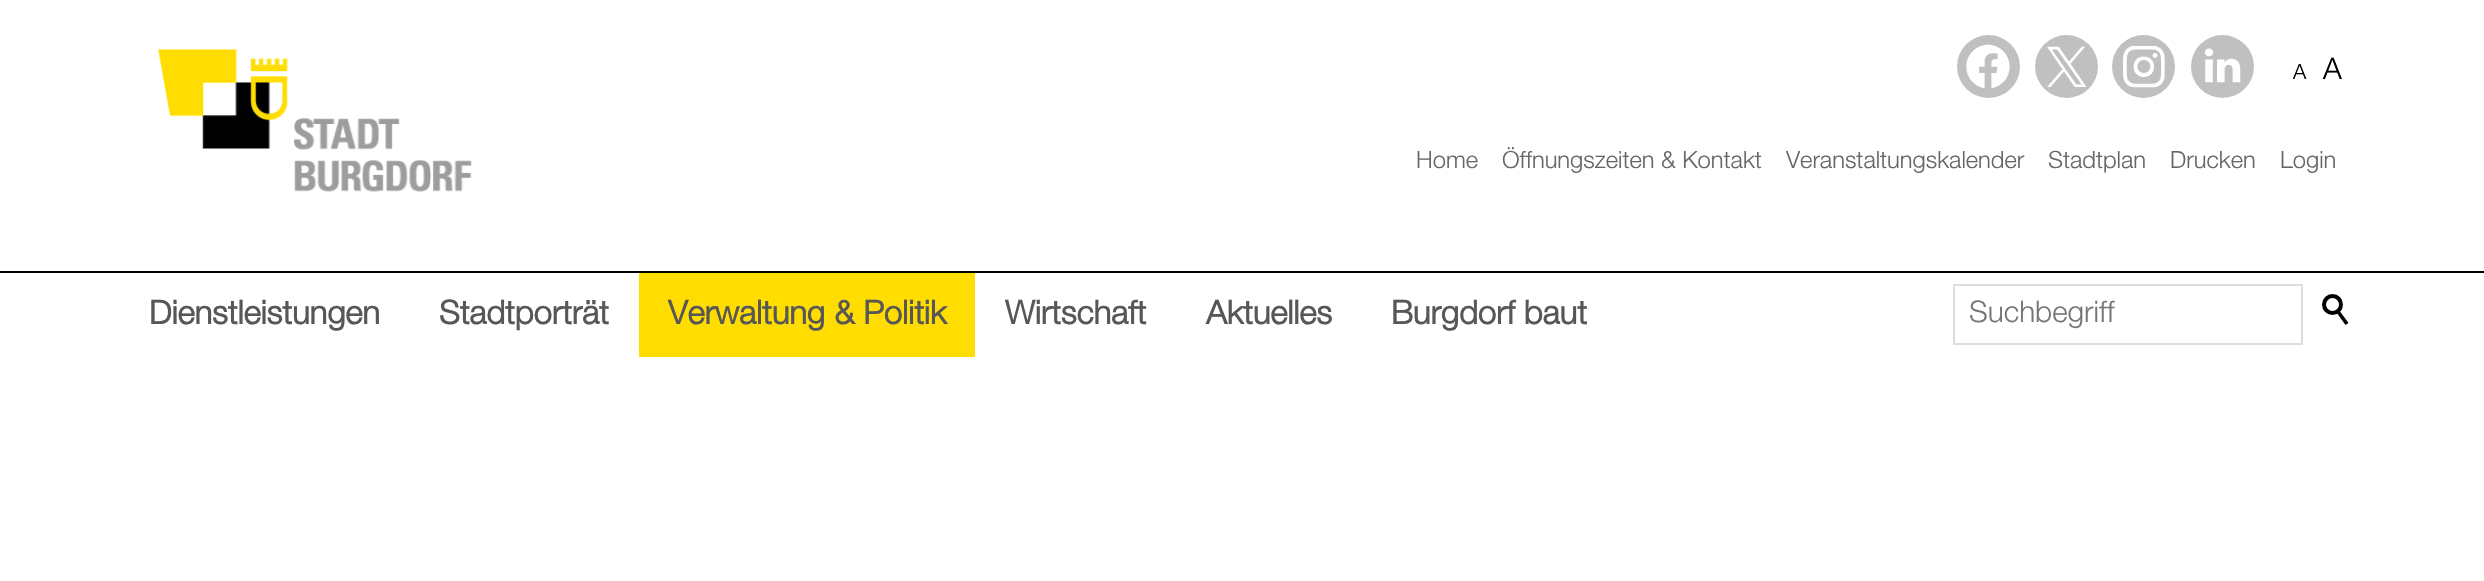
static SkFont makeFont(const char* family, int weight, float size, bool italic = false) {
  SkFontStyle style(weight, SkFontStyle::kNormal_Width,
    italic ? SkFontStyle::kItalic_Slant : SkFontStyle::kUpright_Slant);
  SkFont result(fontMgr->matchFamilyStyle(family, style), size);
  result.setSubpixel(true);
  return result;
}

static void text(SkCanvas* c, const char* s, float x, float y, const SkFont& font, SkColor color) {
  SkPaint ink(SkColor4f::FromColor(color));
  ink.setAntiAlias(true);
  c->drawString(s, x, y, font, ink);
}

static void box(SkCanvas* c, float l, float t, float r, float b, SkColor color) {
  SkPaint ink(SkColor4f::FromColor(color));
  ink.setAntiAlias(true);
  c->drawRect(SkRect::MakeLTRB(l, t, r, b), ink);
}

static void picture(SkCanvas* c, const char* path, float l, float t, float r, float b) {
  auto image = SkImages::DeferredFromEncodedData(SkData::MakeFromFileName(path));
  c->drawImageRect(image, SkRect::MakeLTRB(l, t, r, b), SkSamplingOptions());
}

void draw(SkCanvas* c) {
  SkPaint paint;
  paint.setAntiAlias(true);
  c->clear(0xffffffff);
  paint.setColor(0xffc0c0c0);
  c->drawCircle(1988.5f, 66.5f, 31.5f, paint);
  picture(c, "img_01.png", 1966, 44, 2010, 89);
  c->drawCircle(2066.5f, 66.5f, 31.5f, paint);
  picture(c, "img_02.png", 2047, 46, 2087, 87);
  c->drawCircle(2143.5f, 66.5f, 31.5f, paint);
  picture(c, "img_03.png", 2123, 46, 2165, 88);
  c->drawCircle(2222.5f, 66.5f, 31.5f, paint);
  picture(c, "img_04.png", 2204, 48, 2241, 83);
  SkFont face1 = makeFont("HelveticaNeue", 300, 21);
  text(c, "A", 2293, 79, face1, 0xff000000);
  SkFont face2 = makeFont("HelveticaNeue", 300, 29.75f);
  text(c, "A", 2323, 79, face2, 0xff000000);
  picture(c, "img_05.png", 158, 48, 472, 192);
  SkFont face3 = makeFont("HelveticaNeue", 300, 23.75f);
  text(c, "Home", 1416, 168, face3, 0xff666666);
  text(c, "Öffnungszeiten & Kontakt", 1502, 168, face3, 0xff666666);
  text(c, "Veranstaltungskalender", 1786, 168, face3, 0xff666666);
  text(c, "Stadtplan", 2048, 168, face3, 0xff666666);
  text(c, "Drucken", 2170, 168, face3, 0xff666666);
  text(c, "Login", 2280, 168, face3, 0xff666666);
  box(c, 0, 271, 2484, 273, 0xff000000);
  SkFont face4 = makeFont("HelveticaNeue", 700, 32.75f);
  text(c, "Dienstleistungen", 149, 324, face4, 0xff575757);
  text(c, "Stadtporträt", 439, 324, face4, 0xff575757);
  box(c, 639, 273, 975, 357, 0xffffdd00);
  text(c, "Verwaltung & Politik", 668, 324, face4, 0xff575757);
  text(c, "Wirtschaft", 1005, 324, face4, 0xff575757);
  text(c, "Aktuelles", 1206, 324, face4, 0xff575757);
  text(c, "Burgdorf baut", 1391, 324, face4, 0xff575757);
  paint.setStyle(SkPaint::kStroke_Style);
  paint.setStrokeWidth(2);
  paint.setColor(0xffdddddd);
  c->drawRect(SkRect::MakeLTRB(1954, 285, 2302, 344), paint);
  text(c, "Suchbegriff", 1969, 322, face2, 0xff757575);
  paint.setStrokeWidth(4);
  paint.setColor(0xff000000);
  c->drawCircle(2332.5f, 304.5f, 8.5f, paint);
  paint.setStyle(SkPaint::kFill_Style);
  c->drawPath(SkPathBuilder().moveTo(2339, 310).lineTo(2348.5f, 323).lineTo(2345.5f, 325).lineTo(2336.5f, 312.5f).close().detach(), paint);
}
